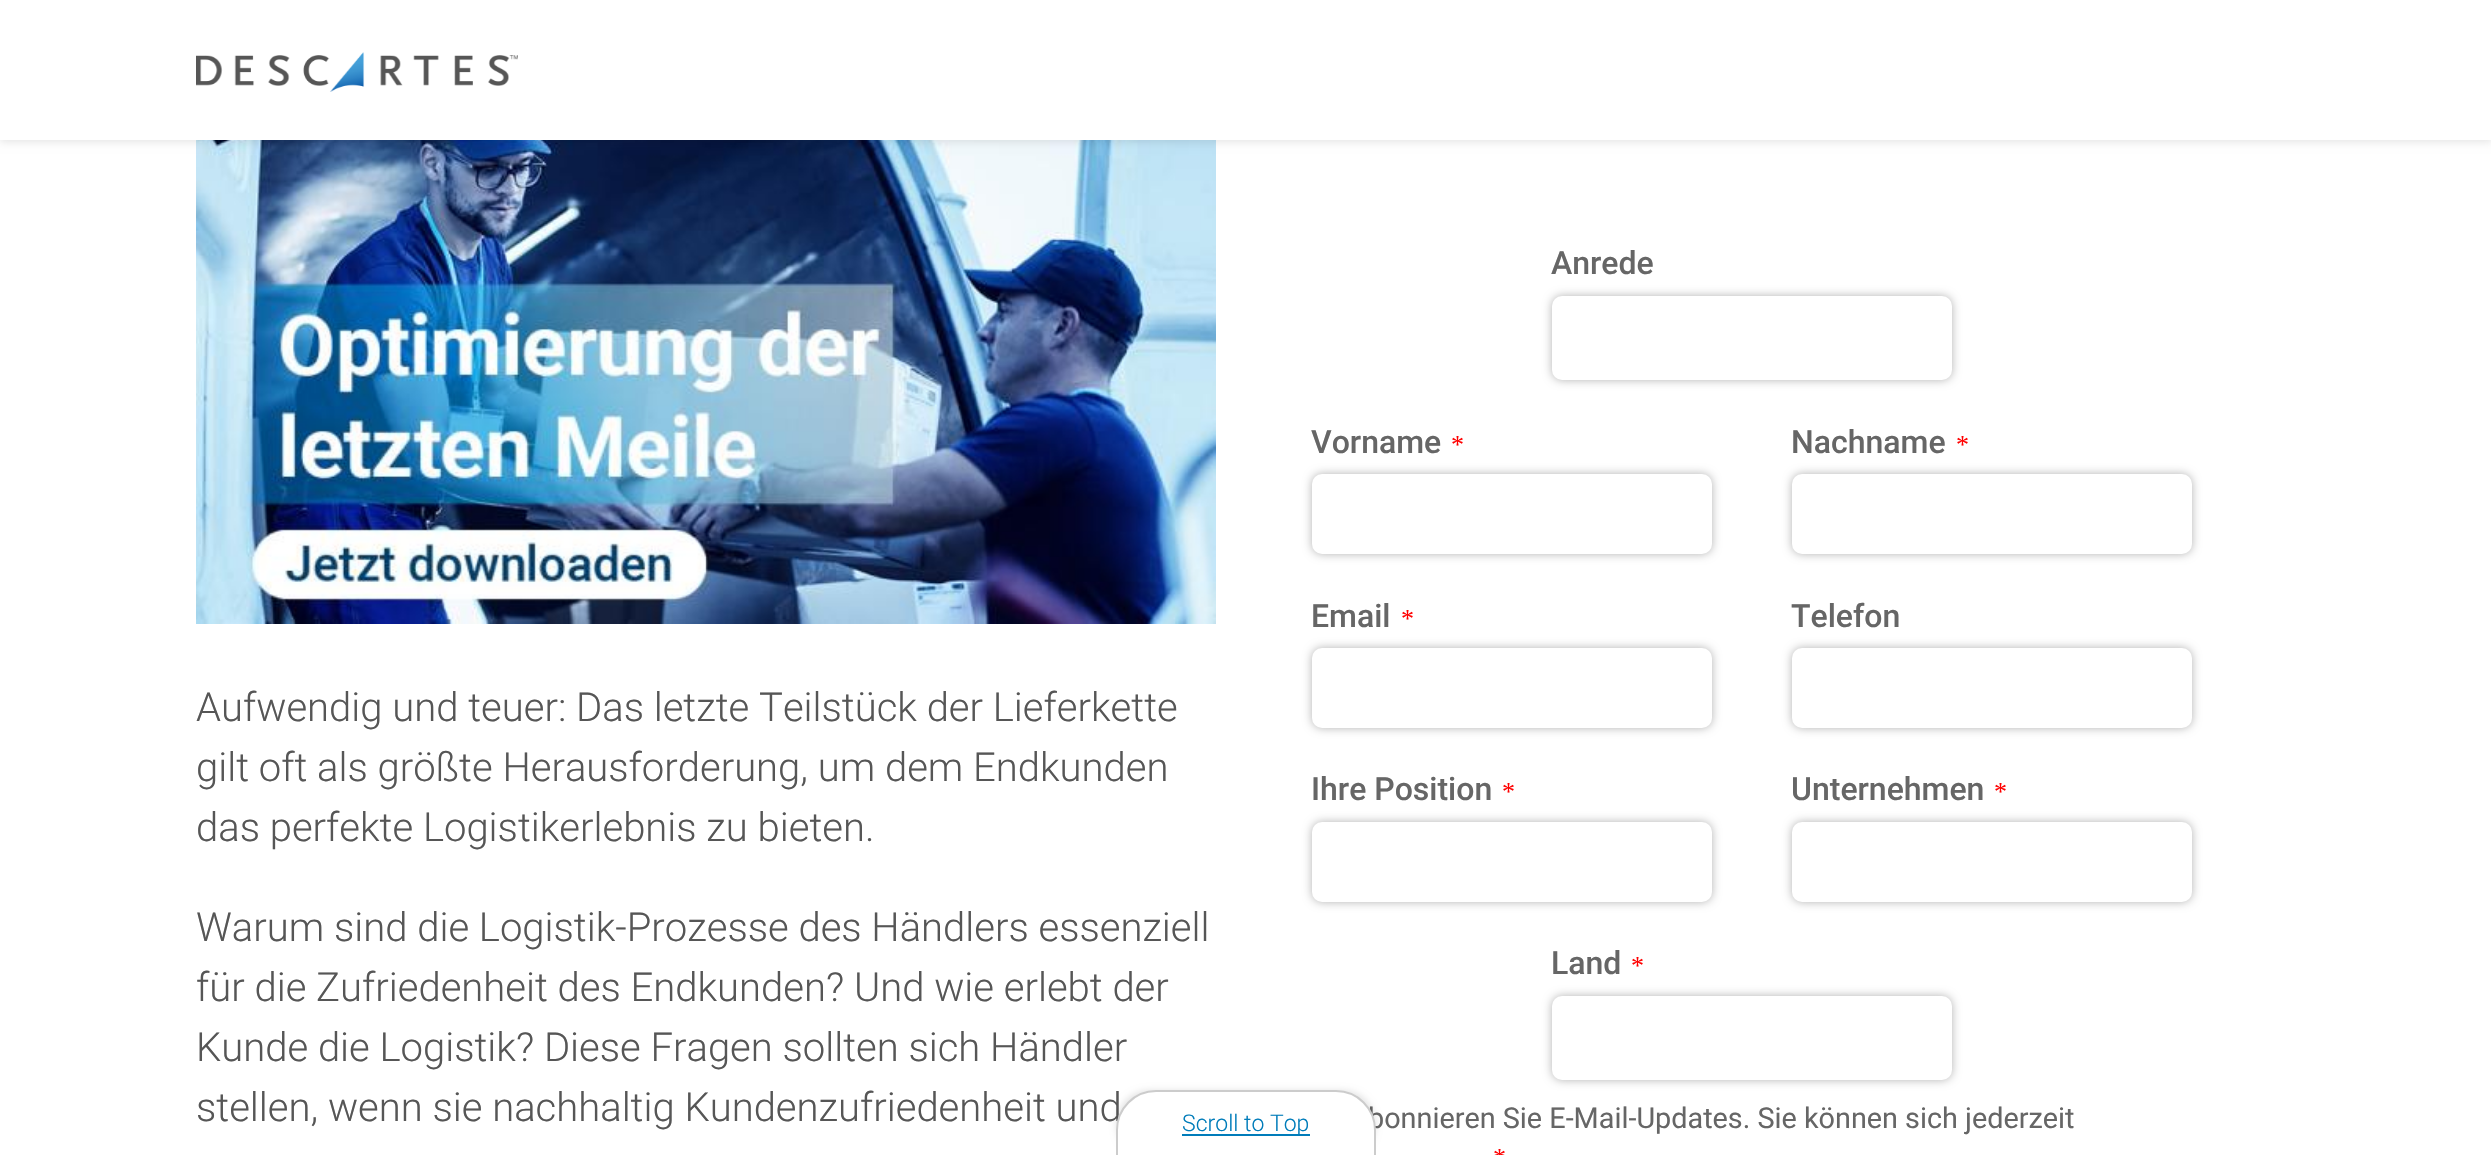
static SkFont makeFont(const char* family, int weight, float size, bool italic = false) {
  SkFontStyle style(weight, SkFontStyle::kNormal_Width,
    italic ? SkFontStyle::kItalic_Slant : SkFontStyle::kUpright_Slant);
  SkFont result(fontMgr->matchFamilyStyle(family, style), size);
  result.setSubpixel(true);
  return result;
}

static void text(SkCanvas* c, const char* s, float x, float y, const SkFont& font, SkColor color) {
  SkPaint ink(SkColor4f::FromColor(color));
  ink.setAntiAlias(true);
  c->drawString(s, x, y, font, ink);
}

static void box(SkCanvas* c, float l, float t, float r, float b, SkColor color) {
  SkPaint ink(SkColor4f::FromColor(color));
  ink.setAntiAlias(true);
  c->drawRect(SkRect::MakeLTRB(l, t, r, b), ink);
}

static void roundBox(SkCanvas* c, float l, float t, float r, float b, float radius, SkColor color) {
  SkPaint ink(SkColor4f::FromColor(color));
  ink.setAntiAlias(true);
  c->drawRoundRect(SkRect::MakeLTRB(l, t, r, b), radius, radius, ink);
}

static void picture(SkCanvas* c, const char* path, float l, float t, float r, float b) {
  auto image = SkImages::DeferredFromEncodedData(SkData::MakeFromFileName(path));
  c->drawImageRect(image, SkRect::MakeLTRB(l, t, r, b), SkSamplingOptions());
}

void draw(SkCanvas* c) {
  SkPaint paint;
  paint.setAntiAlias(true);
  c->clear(0xffffffff);
  picture(c, "img_02.png", 196, 140, 1216, 624);
  paint.setColor(0x1a000000);
  paint.setMaskFilter(SkMaskFilter::MakeBlur(kNormal_SkBlurStyle, 4));
  c->drawRect(SkRect::MakeLTRB(0, 2, 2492, 142), paint);
  paint.setMaskFilter(nullptr);
  box(c, 0, 0, 2491, 140, 0xffffffff);
  picture(c, "img_01.png", 196, 52, 518, 92);
  SkFont face1 = makeFont("Roboto", 300, 40);
  text(c, "Aufwendig und teuer: Das letzte Teilstück der Lieferkette", 196, 721, face1, 0xff565656);
  text(c, "gilt oft als größte Herausforderung, um dem Endkunden", 196, 781, face1, 0xff565656);
  text(c, "das perfekte Logistikerlebnis zu bieten.", 196, 841, face1, 0xff565656);
  text(c, "Warum sind die Logistik-Prozesse des Händlers essenziell", 196, 941, face1, 0xff565656);
  text(c, "für die Zufriedenheit des Endkunden? Und wie erlebt der", 196, 1001, face1, 0xff565656);
  text(c, "Kunde die Logistik? Diese Fragen sollten sich Händler", 196, 1061, face1, 0xff565656);
  text(c, "stellen, wenn sie nachhaltig Kundenzufriedenheit und", 196, 1121, face1, 0xff565656);
  SkFont face2 = makeFont("Roboto", 500, 32);
  text(c, "Anrede", 1551, 274, face2, 0xff666666);
  paint.setColor(0x4d000000);
  paint.setMaskFilter(SkMaskFilter::MakeBlur(kNormal_SkBlurStyle, 5));
  c->drawRoundRect(SkRect::MakeLTRB(1552, 296, 1952, 380), 10, 10, paint);
  paint.setMaskFilter(nullptr);
  roundBox(c, 1552, 296, 1952, 380, 10, 0xffffffff);
  text(c, "Vorname", 1311, 453, face2, 0xff666666);
  SkFont face3 = makeFont("Liberation Serif", 400, 26);
  text(c, "*", 1451, 453, face3, 0xffff0000);
  paint.setMaskFilter(SkMaskFilter::MakeBlur(kNormal_SkBlurStyle, 5));
  c->drawRoundRect(SkRect::MakeLTRB(1312, 474, 1712, 554), 10, 10, paint);
  paint.setMaskFilter(nullptr);
  roundBox(c, 1312, 474, 1712, 554, 10, 0xffffffff);
  text(c, "Nachname", 1791, 453, face2, 0xff666666);
  text(c, "*", 1956, 453, face3, 0xffff0000);
  paint.setMaskFilter(SkMaskFilter::MakeBlur(kNormal_SkBlurStyle, 5));
  c->drawRoundRect(SkRect::MakeLTRB(1792, 474, 2192, 554), 10, 10, paint);
  paint.setMaskFilter(nullptr);
  roundBox(c, 1792, 474, 2192, 554, 10, 0xffffffff);
  text(c, "Email", 1311, 627, face2, 0xff666666);
  text(c, "*", 1401, 627, face3, 0xffff0000);
  paint.setMaskFilter(SkMaskFilter::MakeBlur(kNormal_SkBlurStyle, 5));
  c->drawRoundRect(SkRect::MakeLTRB(1312, 648, 1712, 728), 10, 10, paint);
  paint.setMaskFilter(nullptr);
  roundBox(c, 1312, 648, 1712, 728, 10, 0xffffffff);
  text(c, "Telefon", 1791, 627, face2, 0xff666666);
  paint.setMaskFilter(SkMaskFilter::MakeBlur(kNormal_SkBlurStyle, 5));
  c->drawRoundRect(SkRect::MakeLTRB(1792, 648, 2192, 728), 10, 10, paint);
  paint.setMaskFilter(nullptr);
  roundBox(c, 1792, 648, 2192, 728, 10, 0xffffffff);
  text(c, "Ihre Position", 1311, 800, face2, 0xff666666);
  text(c, "*", 1502, 800, face3, 0xffff0000);
  paint.setMaskFilter(SkMaskFilter::MakeBlur(kNormal_SkBlurStyle, 5));
  c->drawRoundRect(SkRect::MakeLTRB(1312, 822, 1712, 902), 10, 10, paint);
  paint.setMaskFilter(nullptr);
  roundBox(c, 1312, 822, 1712, 902, 10, 0xffffffff);
  text(c, "Unternehmen", 1791, 800, face2, 0xff666666);
  text(c, "*", 1994, 800, face3, 0xffff0000);
  paint.setMaskFilter(SkMaskFilter::MakeBlur(kNormal_SkBlurStyle, 5));
  c->drawRoundRect(SkRect::MakeLTRB(1792, 822, 2192, 902), 10, 10, paint);
  paint.setMaskFilter(nullptr);
  roundBox(c, 1792, 822, 2192, 902, 10, 0xffffffff);
  text(c, "Land", 1551, 974, face2, 0xff666666);
  text(c, "*", 1631, 974, face3, 0xffff0000);
  paint.setMaskFilter(SkMaskFilter::MakeBlur(kNormal_SkBlurStyle, 5));
  c->drawRoundRect(SkRect::MakeLTRB(1552, 996, 1952, 1080), 10, 10, paint);
  paint.setMaskFilter(nullptr);
  roundBox(c, 1552, 996, 1952, 1080, 10, 0xffffffff);
  SkFont face4 = makeFont("Roboto", 400, 28.8f);
  text(c, "bonnieren Sie E-Mail-Updates. Sie können sich jederzeit", 1368, 1128, face4, 0xff666666);
  text(c, "*", 1493, 1166, face3, 0xffff0000);
  paint.setColor(0x1a000000);
  paint.setMaskFilter(SkMaskFilter::MakeBlur(kNormal_SkBlurStyle, 3));
  c->drawRoundRect(SkRect::MakeLTRB(1116, 1090, 1376, 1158), 40, 40, paint);
  paint.setMaskFilter(nullptr);
  paint.setColor(0xffffffff);
  c->drawPath(SkPathBuilder().moveTo(1156, 1091).lineTo(1336, 1091).cubicTo(1357.5f, 1091, 1375, 1108.5f, 1375, 1130).lineTo(1375, 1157).lineTo(1117, 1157).lineTo(1117, 1130).cubicTo(1117, 1108.5f, 1134.5f, 1091, 1156, 1091).close().detach(), paint);
  paint.setStyle(SkPaint::kStroke_Style);
  paint.setStrokeWidth(2);
  paint.setColor(0xffcccccc);
  c->drawPath(SkPathBuilder().moveTo(1156, 1091).lineTo(1336, 1091).cubicTo(1357.5f, 1091, 1375, 1108.5f, 1375, 1130).lineTo(1375, 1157).lineTo(1117, 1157).lineTo(1117, 1130).cubicTo(1117, 1108.5f, 1134.5f, 1091, 1156, 1091).close().detach(), paint);
  box(c, 1182, 1134, 1310, 1136, 0xff007cba);
  SkFont face5 = makeFont("Roboto", 300, 23);
  text(c, "Scroll to Top", 1182, 1131, face5, 0xff007cba);
}
